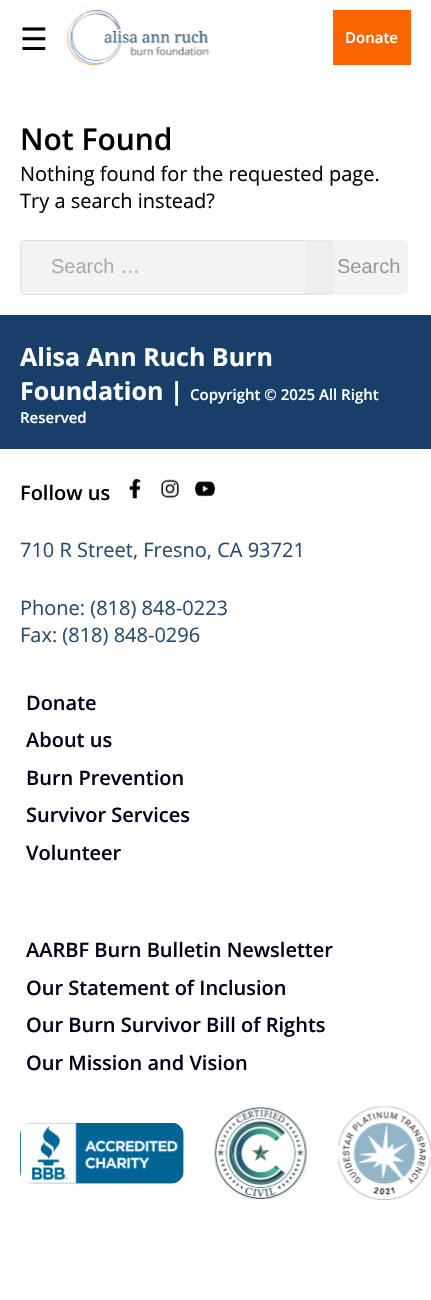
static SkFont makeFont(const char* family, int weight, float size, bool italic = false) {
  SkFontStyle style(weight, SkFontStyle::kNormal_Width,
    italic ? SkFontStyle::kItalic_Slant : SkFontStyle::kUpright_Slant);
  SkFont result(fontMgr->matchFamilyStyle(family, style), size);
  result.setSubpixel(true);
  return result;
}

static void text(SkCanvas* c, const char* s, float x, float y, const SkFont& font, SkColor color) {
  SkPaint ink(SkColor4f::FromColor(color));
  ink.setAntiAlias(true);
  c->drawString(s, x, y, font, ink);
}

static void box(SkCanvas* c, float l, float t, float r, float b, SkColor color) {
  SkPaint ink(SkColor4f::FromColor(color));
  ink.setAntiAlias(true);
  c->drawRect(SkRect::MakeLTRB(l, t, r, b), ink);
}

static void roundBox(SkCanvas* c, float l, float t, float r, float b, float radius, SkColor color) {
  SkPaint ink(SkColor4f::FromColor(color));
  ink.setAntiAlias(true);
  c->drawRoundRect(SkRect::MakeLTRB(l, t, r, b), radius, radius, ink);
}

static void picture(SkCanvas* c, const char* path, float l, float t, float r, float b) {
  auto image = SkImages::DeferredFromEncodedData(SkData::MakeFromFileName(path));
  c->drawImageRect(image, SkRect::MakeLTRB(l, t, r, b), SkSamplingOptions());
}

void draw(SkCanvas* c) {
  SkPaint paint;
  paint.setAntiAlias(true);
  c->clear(0xffffffff);
  SkFont face1 = makeFont("DejaVu Sans", 400, 31);
  text(c, "☰", 20, 50, face1, 0xff000000);
  picture(c, "img_01.png", 67, 10, 209, 65);
  box(c, 333, 10, 411, 65, 0xfffb6500);
  SkFont face2 = makeFont("Open Sans", 600, 15);
  text(c, "Donate", 345, 43, face2, 0xffffffff);
  SkFont face3 = makeFont("Open Sans", 600, 30);
  text(c, "Not Found", 20, 150, face3, 0xff000000);
  SkFont face4 = makeFont("Open Sans", 400, 20);
  text(c, "Nothing found for the requested page.", 20, 181, face4, 0xff000000);
  text(c, "Try a search instead?", 20, 208, face4, 0xff000000);
  paint.setColor(0xfff3f3f4);
  c->drawRoundRect(SkRect::MakeLTRB(20.5f, 240.5f, 332.5f, 294.5f), 4.5f, 4.5f, paint);
  paint.setStyle(SkPaint::kStroke_Style);
  paint.setStrokeWidth(1);
  paint.setColor(0xffe0e0e0);
  c->drawRoundRect(SkRect::MakeLTRB(20.5f, 240.5f, 332.5f, 294.5f), 4.5f, 4.5f, paint);
  SkFont face5 = makeFont("Liberation Sans", 400, 20);
  text(c, "Search …", 51, 273, face5, 0xffacacac);
  roundBox(c, 306, 240, 408, 295, 5, 0x99ebebec);
  text(c, "Search", 337, 273, face5, 0xff989b9c);
  box(c, 0, 315, 431, 449, 0xff183f69);
  SkFont face6 = makeFont("Open Sans", 700, 25);
  text(c, "Alisa Ann Ruch Burn", 20, 366, face6, 0xffffffff);
  text(c, "Foundation |", 20, 400, face6, 0xffffffff);
  text(c, "Copyright © 2025 All Right", 190, 400, face2, 0xffffffff);
  text(c, "Reserved", 20, 423, face2, 0xffffffff);
  SkFont face7 = makeFont("Open Sans", 600, 20);
  text(c, "Follow us", 20, 500, face7, 0xff000000);
  picture(c, "img_02.png", 129, 479, 141, 499);
  picture(c, "img_03.png", 161, 479, 179, 498);
  picture(c, "img_04.png", 195, 480, 215, 497);
  text(c, "710 R Street, Fresno, CA 93721", 20, 557, face4, 0xff274a6d);
  text(c, "Phone: (818) 848-0223", 20, 615, face4, 0xff274a6d);
  text(c, "Fax: (818) 848-0296", 20, 642, face4, 0xff274a6d);
  text(c, "Donate", 26, 710, face7, 0xff000018);
  text(c, "About us", 26, 747, face7, 0xff000018);
  text(c, "Burn Prevention", 26, 785, face7, 0xff000018);
  text(c, "Survivor Services", 26, 822, face7, 0xff000018);
  text(c, "Volunteer", 26, 860, face7, 0xff000018);
  text(c, "AARBF Burn Bulletin Newsletter", 26, 957, face7, 0xff000018);
  text(c, "Our Statement of Inclusion", 26, 995, face7, 0xff000018);
  text(c, "Our Burn Survivor Bill of Rights", 26, 1032, face7, 0xff000018);
  text(c, "Our Mission and Vision", 26, 1070, face7, 0xff000018);
  picture(c, "img_05.png", 20, 1123, 184, 1184);
  picture(c, "img_06.png", 214, 1106, 307, 1200);
  picture(c, "img_07.png", 338, 1106, 431, 1200);
}
